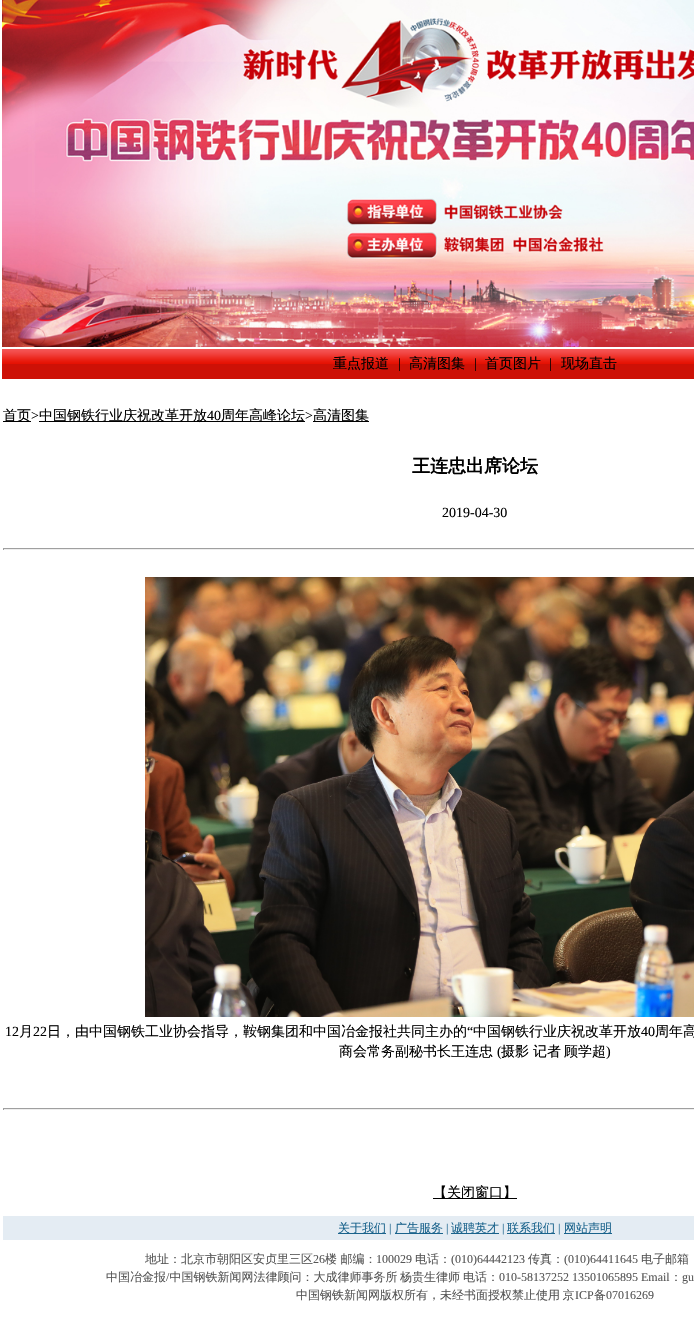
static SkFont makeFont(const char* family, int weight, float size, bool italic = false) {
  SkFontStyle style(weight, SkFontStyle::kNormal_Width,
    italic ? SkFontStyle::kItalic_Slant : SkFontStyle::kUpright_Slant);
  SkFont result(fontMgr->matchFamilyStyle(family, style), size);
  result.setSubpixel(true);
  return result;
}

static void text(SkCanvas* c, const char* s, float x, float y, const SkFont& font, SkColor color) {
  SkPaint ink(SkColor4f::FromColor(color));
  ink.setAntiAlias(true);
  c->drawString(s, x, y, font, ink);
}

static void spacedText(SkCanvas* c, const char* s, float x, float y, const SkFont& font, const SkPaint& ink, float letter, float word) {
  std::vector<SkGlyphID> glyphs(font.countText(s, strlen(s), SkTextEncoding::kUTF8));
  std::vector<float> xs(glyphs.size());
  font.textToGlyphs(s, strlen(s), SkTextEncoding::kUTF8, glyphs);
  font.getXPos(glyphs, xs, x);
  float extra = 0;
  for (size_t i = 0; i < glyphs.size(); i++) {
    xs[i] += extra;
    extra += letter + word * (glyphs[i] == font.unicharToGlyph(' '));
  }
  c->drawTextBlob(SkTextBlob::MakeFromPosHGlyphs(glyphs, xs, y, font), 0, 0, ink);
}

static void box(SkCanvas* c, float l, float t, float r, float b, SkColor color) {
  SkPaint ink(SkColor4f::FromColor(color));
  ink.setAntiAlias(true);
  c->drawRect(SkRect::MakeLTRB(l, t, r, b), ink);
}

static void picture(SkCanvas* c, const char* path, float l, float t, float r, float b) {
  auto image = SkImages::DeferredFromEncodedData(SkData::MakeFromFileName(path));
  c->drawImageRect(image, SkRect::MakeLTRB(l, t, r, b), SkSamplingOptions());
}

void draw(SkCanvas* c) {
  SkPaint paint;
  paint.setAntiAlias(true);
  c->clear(0xffffffff);
  picture(c, "img_01.png", 2, 0, 694, 347);
  picture(c, "img_02.png", 2, 349, 694, 379);
  SkFont face1 = makeFont("WenQuanYi Zen Hei", 500, 14);
  text(c, "重点报道", 333, 368, face1, 0xff000000);
  SkFont face2 = makeFont("Liberation Serif", 400, 14);
  text(c, "|", 398, 368, face2, 0xff000000);
  text(c, "高清图集", 409, 368, face1, 0xff000000);
  text(c, "|", 474, 368, face2, 0xff000000);
  text(c, "首页图片", 485, 368, face1, 0xff000000);
  text(c, "|", 549, 368, face2, 0xff000000);
  text(c, "现场直击", 561, 368, face1, 0xff000000);
  box(c, 3, 421, 31, 422, 0xff000000);
  text(c, "首页", 3, 420, face1, 0xff000000);
  text(c, ">", 31, 420, face2, 0xff000000);
  box(c, 39, 421, 305, 422, 0xff000000);
  text(c, "中国钢铁行业庆祝改革开放", 39, 420, face1, 0xff000000);
  text(c, "40", 207, 420, face2, 0xff000000);
  text(c, "周年高峰论坛", 221, 420, face1, 0xff000000);
  text(c, ">", 305, 420, face2, 0xff000000);
  box(c, 313, 421, 369, 422, 0xff000000);
  text(c, "高清图集", 313, 420, face1, 0xff000000);
  SkFont face3 = makeFont("WenQuanYi Zen Hei", 700, 18);
  text(c, "王连忠出席论坛", 412, 472, face3, 0xff000000);
  text(c, "2019-04-30", 442, 517, face2, 0xff000000);
  box(c, 3, 548, 694, 549, 0xff9f9f9f);
  box(c, 3, 549, 694, 550, 0xffeeeeee);
  box(c, 3, 548, 4, 550, 0xff9f9f9f);
  picture(c, "img_03.png", 145, 577, 694, 1017);
  text(c, "12", 5, 1036, face2, 0xff000000);
  text(c, "月", 19, 1036, face1, 0xff000000);
  text(c, "22", 33, 1036, face2, 0xff000000);
  text(c, "日，由中国钢铁工业协会指导，鞍钢集团和中国冶金报社共同主办的", 47, 1036, face1, 0xff000000);
  text(c, "“", 467, 1036, face2, 0xff000000);
  text(c, "中国钢铁行业庆祝改革开放", 473, 1036, face1, 0xff000000);
  text(c, "40", 641, 1036, face2, 0xff000000);
  text(c, "周年高", 655, 1036, face1, 0xff000000);
  text(c, "商会常务副秘书长王连忠", 339, 1056, face1, 0xff000000);
  text(c, "(", 497, 1056, face2, 0xff000000);
  text(c, "摄影", 501, 1056, face1, 0xff000000);
  text(c, "记者", 533, 1056, face1, 0xff000000);
  text(c, "顾学超", 564, 1056, face1, 0xff000000);
  text(c, ")", 606, 1056, face2, 0xff000000);
  box(c, 3, 1108, 694, 1109, 0xff9f9f9f);
  box(c, 3, 1109, 694, 1110, 0xffeeeeee);
  box(c, 3, 1108, 4, 1110, 0xff9f9f9f);
  box(c, 433, 1198, 517, 1199, 0xff000000);
  text(c, "【关闭窗口】", 433, 1197, face1, 0xff000000);
  box(c, 3, 1216, 694, 1240, 0xffe4ecf3);
  box(c, 338, 1233, 386, 1234, 0xff1a638c);
  SkFont face4 = makeFont("WenQuanYi Zen Hei", 500, 12);
  text(c, "关于我们", 338, 1232, face4, 0xff1a638c);
  SkFont face5 = makeFont("Liberation Serif", 400, 12);
  text(c, "|", 389, 1232, face5, 0xff1a638c);
  box(c, 395, 1233, 443, 1234, 0xff1a638c);
  text(c, "广告服务", 395, 1232, face4, 0xff1a638c);
  text(c, "|", 446, 1232, face5, 0xff1a638c);
  box(c, 451, 1233, 499, 1234, 0xff1a638c);
  text(c, "诚聘英才", 451, 1232, face4, 0xff1a638c);
  text(c, "|", 502, 1232, face5, 0xff1a638c);
  box(c, 507, 1233, 555, 1234, 0xff1a638c);
  text(c, "联系我们", 507, 1232, face4, 0xff1a638c);
  text(c, "|", 558, 1232, face5, 0xff1a638c);
  box(c, 564, 1233, 612, 1234, 0xff1a638c);
  text(c, "网站声明", 564, 1232, face4, 0xff1a638c);
  text(c, "地址：北京市朝阳区安贞里三区", 145, 1263, face4, 0xff555555);
  text(c, "26", 313, 1263, face5, 0xff555555);
  text(c, "楼 邮编：", 325, 1263, face4, 0xff555555);
  text(c, "100029", 376, 1263, face5, 0xff555555);
  text(c, "电话：", 415, 1263, face4, 0xff555555);
  text(c, "(010)64442123", 451, 1263, face5, 0xff555555);
  text(c, "传真：", 528, 1263, face4, 0xff555555);
  text(c, "(010)64411645", 564, 1263, face5, 0xff555555);
  text(c, "电子邮箱", 641, 1263, face4, 0xff555555);
  text(c, "中国冶金报 中国钢铁新闻网法律顾问：大成律师事务所", 106, 1281, face4, 0xff555555);
  text(c, "杨贵生律师", 400, 1281, face4, 0xff555555);
  text(c, "电话：", 463, 1281, face4, 0xff555555);
  text(c, "010-58137252 13501065895 Email", 499, 1281, face5, 0xff555555);
  text(c, "/", 166, 1281, face5, 0xff555555);
  text(c, "：", 670, 1281, face4, 0xff555555);
  text(c, "gu", 682, 1281, face5, 0xff555555);
  paint.setColor(0xff555555);
  spacedText(c, "中国钢铁新闻网版权所有，未经书面授权禁止使用 京", 296, 1299, face4, paint, 0, -1);
  text(c, "ICP", 575, 1299, face5, 0xff555555);
  text(c, "备", 594, 1299, face4, 0xff555555);
  text(c, "07016269", 606, 1299, face5, 0xff555555);
}
